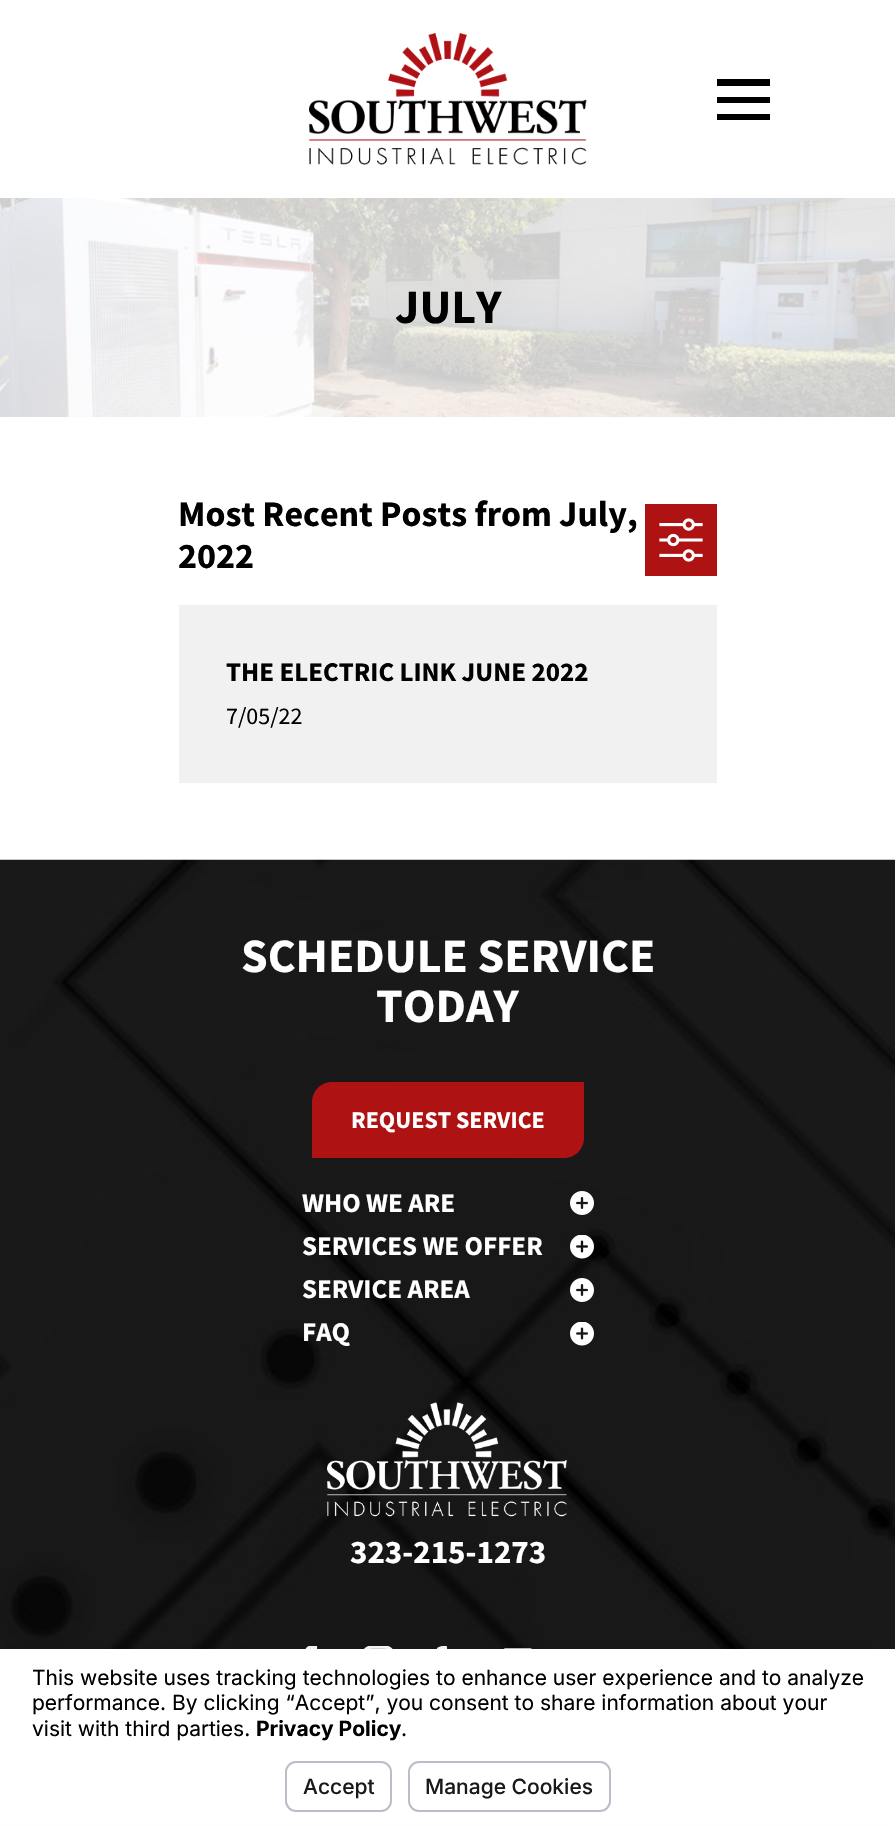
static SkFont makeFont(const char* family, int weight, float size, bool italic = false) {
  SkFontStyle style(weight, SkFontStyle::kNormal_Width,
    italic ? SkFontStyle::kItalic_Slant : SkFontStyle::kUpright_Slant);
  SkFont result(fontMgr->matchFamilyStyle(family, style), size);
  result.setSubpixel(true);
  return result;
}

static void text(SkCanvas* c, const char* s, float x, float y, const SkFont& font, SkColor color) {
  SkPaint ink(SkColor4f::FromColor(color));
  ink.setAntiAlias(true);
  c->drawString(s, x, y, font, ink);
}

static void box(SkCanvas* c, float l, float t, float r, float b, SkColor color) {
  SkPaint ink(SkColor4f::FromColor(color));
  ink.setAntiAlias(true);
  c->drawRect(SkRect::MakeLTRB(l, t, r, b), ink);
}

static void picture(SkCanvas* c, const char* path, float l, float t, float r, float b) {
  auto image = SkImages::DeferredFromEncodedData(SkData::MakeFromFileName(path));
  c->drawImageRect(image, SkRect::MakeLTRB(l, t, r, b), SkSamplingOptions());
}

void draw(SkCanvas* c) {
  SkPaint paint;
  paint.setAntiAlias(true);
  c->clear(0xffffffff);
  picture(c, "img_01.png", 309, 33, 587, 165);
  paint.setColor(0xff000000);
  c->drawPath(SkPathBuilder().moveTo(717, 79).lineTo(717, 86).lineTo(770, 86).lineTo(770, 79).close().moveTo(717, 97).lineTo(717, 103).lineTo(770, 103).lineTo(770, 97).close().moveTo(717, 114).lineTo(717, 120).lineTo(770, 120).lineTo(770, 114).close().detach(), paint);
  picture(c, "img_02.png", 0, 198, 895, 417);
  SkFont face1 = makeFont("Source Sans Pro", 700, 48);
  text(c, "JULY", 395, 323, face1, 0xff000000);
  SkFont face2 = makeFont("Source Sans Pro", 700, 36);
  text(c, "Most Recent Posts from July,", 178, 526, face2, 0xff000000);
  text(c, "2022", 178, 568, face2, 0xff000000);
  box(c, 645, 504, 717, 576, 0xffae1213);
  picture(c, "img_03.png", 659, 518, 703, 562);
  box(c, 179, 605, 717, 783, 0xfff1f1f1);
  SkFont face3 = makeFont("Source Sans Pro", 700, 27);
  text(c, "THE ELECTRIC LINK JUNE 2022", 226, 681, face3, 0xff000000);
  SkFont face4 = makeFont("Source Sans Pro", 400, 24);
  text(c, "7/05/22", 226, 724, face4, 0xff000000);
  picture(c, "img_04.png", 0, 859, 895, 1649);
  text(c, "SCHEDULE SERVICE", 241, 972, face1, 0xffffffff);
  text(c, "TODAY", 376, 1022, face1, 0xffffffff);
  paint.setColor(0xffae1213);
  c->drawPath(SkPathBuilder().moveTo(332, 1082).lineTo(584, 1082).lineTo(584, 1138).cubicTo(584, 1149, 575, 1158, 564, 1158).lineTo(312, 1158).lineTo(312, 1102).cubicTo(312, 1091, 321, 1082, 332, 1082).close().detach(), paint);
  SkFont face5 = makeFont("Source Sans Pro", 700, 24);
  text(c, "REQUEST SERVICE", 351, 1128, face5, 0xffffffff);
  text(c, "WHO WE ARE", 302, 1212, face3, 0xffffffff);
  picture(c, "img_05.png", 570, 1191, 594, 1215);
  text(c, "SERVICES WE OFFER", 302, 1255, face3, 0xffffffff);
  picture(c, "img_06.png", 570, 1235, 594, 1259);
  text(c, "SERVICE AREA", 302, 1298, face3, 0xffffffff);
  picture(c, "img_07.png", 570, 1278, 594, 1302);
  text(c, "FAQ", 302, 1341, face3, 0xffffffff);
  picture(c, "img_08.png", 570, 1322, 594, 1346);
  picture(c, "img_09.png", 327, 1402, 567, 1517);
  SkFont face6 = makeFont("Source Sans Pro", 700, 33);
  text(c, "323-215-1273", 350, 1563, face6, 0xffffffff);
  picture(c, "img_10.png", 305, 1646, 318, 1649);
  picture(c, "img_11.png", 364, 1646, 393, 1649);
  picture(c, "img_12.png", 436, 1646, 448, 1649);
  picture(c, "img_13.png", 503, 1648, 532, 1649);
  paint.setColor(0x0d000000);
  paint.setMaskFilter(SkMaskFilter::MakeBlur(kNormal_SkBlurStyle, 2));
  c->drawRect(SkRect::MakeLTRB(0, 1643, 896, 1821), paint);
  paint.setMaskFilter(nullptr);
  box(c, 0, 1649, 895, 1823, 0xffffffff);
  SkFont face7 = makeFont("Inter", 400, 21);
  text(c, "This website uses tracking technologies to enhance user experience and to analyze", 32, 1685, face7, 0xff000000);
  text(c, "performance. By clicking “Accept”, you consent to share information about your", 32, 1710, face7, 0xff000000);
  text(c, "visit with third parties.", 32, 1736, face7, 0xff000000);
  SkFont face8 = makeFont("Inter", 700, 21);
  text(c, "Privacy Policy", 256, 1736, face8, 0xff000000);
  text(c, ".", 401, 1736, face7, 0xff000000);
  paint.setStyle(SkPaint::kStroke_Style);
  paint.setStrokeWidth(2);
  paint.setColor(0xffbcbec7);
  c->drawRoundRect(SkRect::MakeLTRB(286, 1762, 391, 1811), 10, 10, paint);
  SkFont face9 = makeFont("Inter", 500, 21);
  text(c, "Accept", 303, 1794, face9, 0xff191919);
  c->drawRoundRect(SkRect::MakeLTRB(409, 1762, 610, 1811), 10, 10, paint);
  text(c, "Manage Cookies", 425, 1794, face9, 0xff191919);
}
